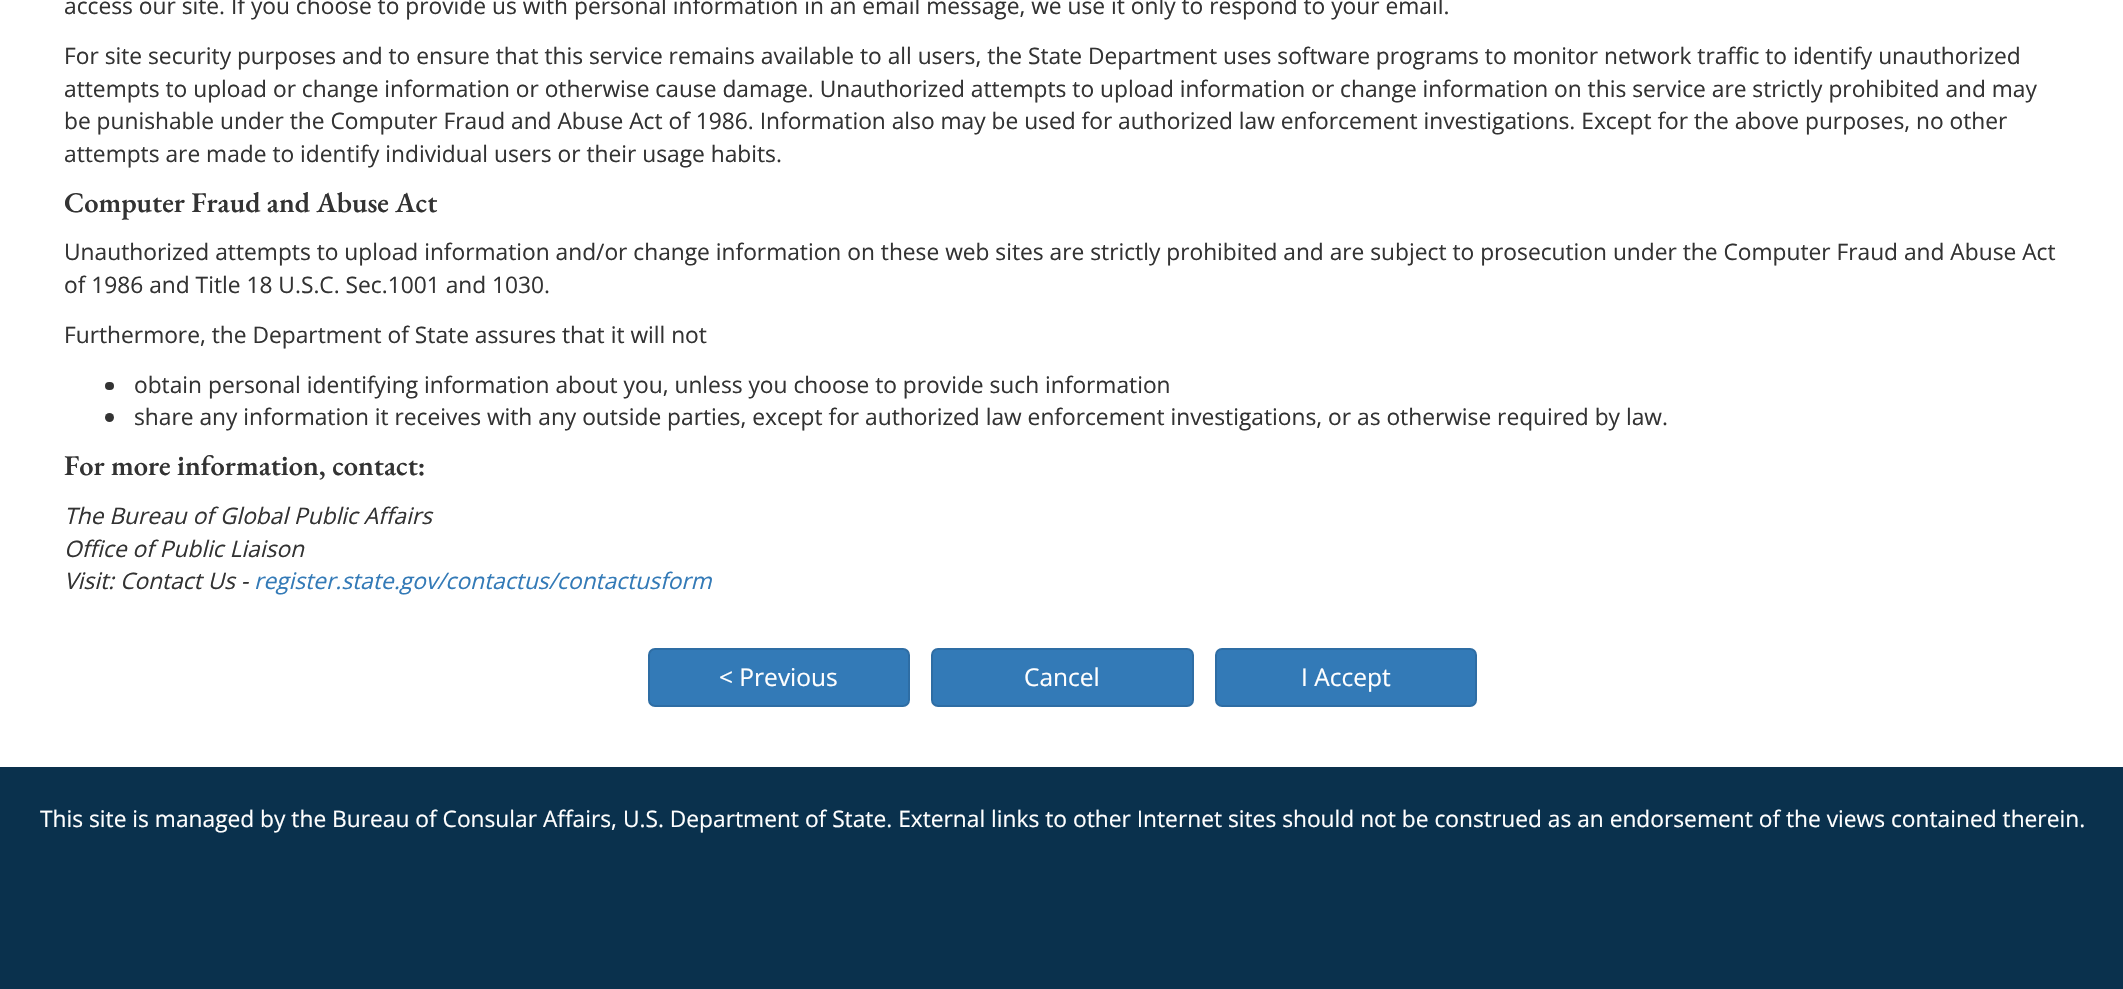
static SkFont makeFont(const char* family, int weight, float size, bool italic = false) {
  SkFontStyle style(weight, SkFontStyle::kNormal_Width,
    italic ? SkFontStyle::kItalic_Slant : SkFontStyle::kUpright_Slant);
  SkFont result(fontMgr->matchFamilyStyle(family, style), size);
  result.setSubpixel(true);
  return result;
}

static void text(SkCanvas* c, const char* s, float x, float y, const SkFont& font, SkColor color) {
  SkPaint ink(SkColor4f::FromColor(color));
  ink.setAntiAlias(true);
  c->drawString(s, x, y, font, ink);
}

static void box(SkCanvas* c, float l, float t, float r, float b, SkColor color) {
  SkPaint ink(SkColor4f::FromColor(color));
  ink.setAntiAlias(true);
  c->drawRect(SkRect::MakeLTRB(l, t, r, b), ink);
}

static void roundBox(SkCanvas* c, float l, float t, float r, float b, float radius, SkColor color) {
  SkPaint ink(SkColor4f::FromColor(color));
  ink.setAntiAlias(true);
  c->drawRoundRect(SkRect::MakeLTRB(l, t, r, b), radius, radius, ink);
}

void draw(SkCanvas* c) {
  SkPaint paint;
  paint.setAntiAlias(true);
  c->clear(0xffffffff);
  SkFont face1 = makeFont("Open Sans", 400, 22.75f);
  text(c, "access our site. If you choose to provide us with personal information in an email message, we use it only to respond to your email.", 64, 14, face1, 0xff333333);
  text(c, "For site security purposes and to ensure that this service remains available to all users, the State Department uses software programs to monitor network traffic to identify unauthorized", 64, 64, face1, 0xff333333);
  text(c, "attempts to upload or change information or otherwise cause damage. Unauthorized attempts to upload information or change information on this service are strictly prohibited and may", 64, 97, face1, 0xff333333);
  text(c, "be punishable under the Computer Fraud and Abuse Act of 1986. Information also may be used for authorized law enforcement investigations. Except for the above purposes, no other", 64, 129, face1, 0xff333333);
  text(c, "attempts are made to identify individual users or their usage habits.", 64, 162, face1, 0xff333333);
  SkFont face2 = makeFont("EB Garamond", 600, 28.5f);
  text(c, "Computer Fraud and Abuse Act", 64, 212, face2, 0xff333333);
  text(c, "Unauthorized attempts to upload information and/or change information on these web sites are strictly prohibited and are subject to prosecution under the Computer Fraud and Abuse Act", 64, 260, face1, 0xff333333);
  text(c, "of 1986 and Title 18 U.S.C. Sec.1001 and 1030.", 64, 293, face1, 0xff333333);
  text(c, "Furthermore, the Department of State assures that it will not", 64, 343, face1, 0xff333333);
  roundBox(c, 105, 382, 114, 390, 4, 0xff333333);
  text(c, "obtain personal identifying information about you, unless you choose to provide such information", 134, 393, face1, 0xff333333);
  paint.setColor(0xff333333);
  c->drawCircle(109.5f, 417.5f, 4.5f, paint);
  text(c, "share any information it receives with any outside parties, except for authorized law enforcement investigations, or as otherwise required by law.", 134, 425, face1, 0xff333333);
  text(c, "For more information, contact:", 64, 475, face2, 0xff333333);
  SkFont face3 = makeFont("Open Sans", 400, 22.75f, true);
  text(c, "The Bureau of Global Public Affairs", 64, 524, face3, 0xff333333);
  text(c, "Office of Public Liaison", 64, 557, face3, 0xff333333);
  text(c, "Visit: Contact Us -", 64, 589, face3, 0xff333333);
  text(c, "register.state.gov/contactus/contactusform", 254, 589, face3, 0xff337ab7);
  paint.setColor(0xff337ab7);
  c->drawRoundRect(SkRect::MakeLTRB(649, 649, 909, 706), 6, 6, paint);
  paint.setStyle(SkPaint::kStroke_Style);
  paint.setStrokeWidth(2);
  paint.setColor(0xff2e6da4);
  c->drawRoundRect(SkRect::MakeLTRB(649, 649, 909, 706), 6, 6, paint);
  SkFont face4 = makeFont("Open Sans", 400, 24.5f);
  text(c, "< Previous", 719, 686, face4, 0xffffffff);
  paint.setStyle(SkPaint::kFill_Style);
  paint.setColor(0xff337ab7);
  c->drawRoundRect(SkRect::MakeLTRB(932, 649, 1193, 706), 6, 6, paint);
  paint.setStyle(SkPaint::kStroke_Style);
  paint.setColor(0xff2e6da4);
  c->drawRoundRect(SkRect::MakeLTRB(932, 649, 1193, 706), 6, 6, paint);
  text(c, "Cancel", 1024, 686, face4, 0xffffffff);
  paint.setStyle(SkPaint::kFill_Style);
  paint.setColor(0xff337ab7);
  c->drawRoundRect(SkRect::MakeLTRB(1216, 649, 1476, 706), 6, 6, paint);
  paint.setStyle(SkPaint::kStroke_Style);
  paint.setColor(0xff2e6da4);
  c->drawRoundRect(SkRect::MakeLTRB(1216, 649, 1476, 706), 6, 6, paint);
  text(c, "I Accept", 1301, 686, face4, 0xffffffff);
  box(c, 0, 767, 2123, 989, 0xff0a314d);
  text(c, "This site is managed by the Bureau of Consular Affairs, U.S. Department of State. External links to other Internet sites should not be construed as an endorsement of the views contained therein.", 40, 827, face1, 0xffffffff);
}
